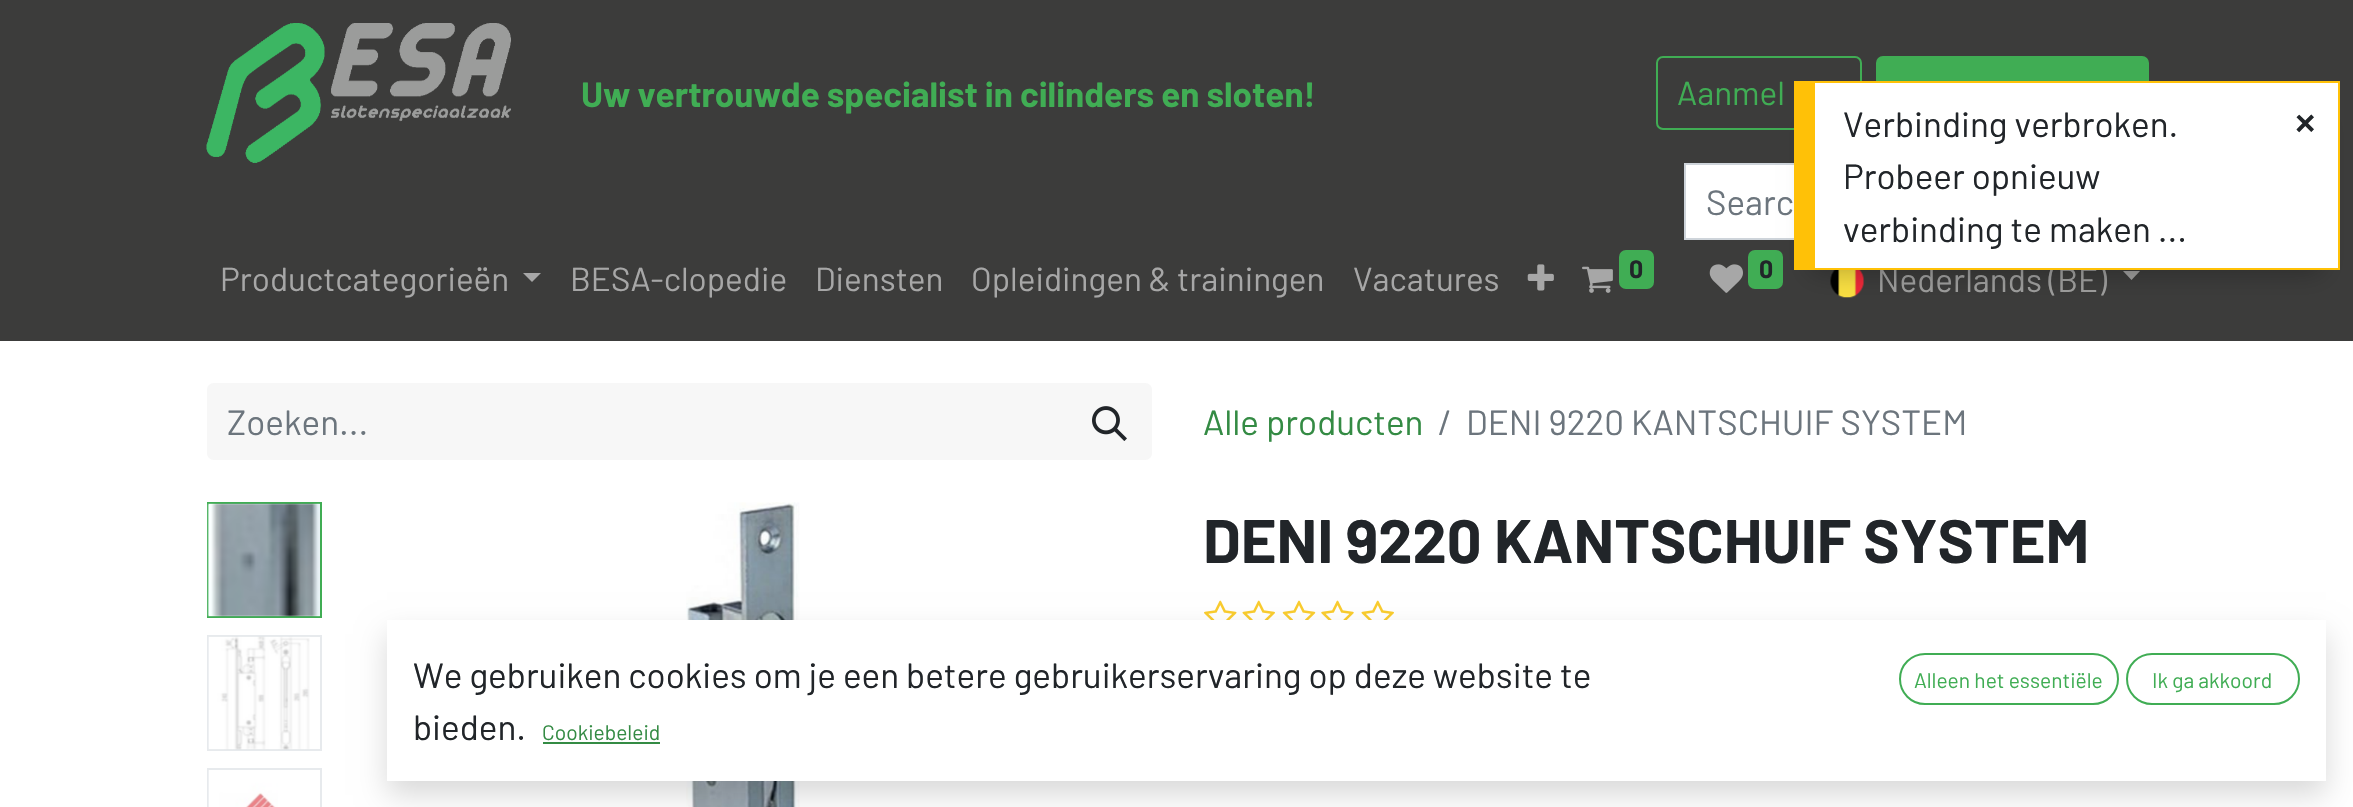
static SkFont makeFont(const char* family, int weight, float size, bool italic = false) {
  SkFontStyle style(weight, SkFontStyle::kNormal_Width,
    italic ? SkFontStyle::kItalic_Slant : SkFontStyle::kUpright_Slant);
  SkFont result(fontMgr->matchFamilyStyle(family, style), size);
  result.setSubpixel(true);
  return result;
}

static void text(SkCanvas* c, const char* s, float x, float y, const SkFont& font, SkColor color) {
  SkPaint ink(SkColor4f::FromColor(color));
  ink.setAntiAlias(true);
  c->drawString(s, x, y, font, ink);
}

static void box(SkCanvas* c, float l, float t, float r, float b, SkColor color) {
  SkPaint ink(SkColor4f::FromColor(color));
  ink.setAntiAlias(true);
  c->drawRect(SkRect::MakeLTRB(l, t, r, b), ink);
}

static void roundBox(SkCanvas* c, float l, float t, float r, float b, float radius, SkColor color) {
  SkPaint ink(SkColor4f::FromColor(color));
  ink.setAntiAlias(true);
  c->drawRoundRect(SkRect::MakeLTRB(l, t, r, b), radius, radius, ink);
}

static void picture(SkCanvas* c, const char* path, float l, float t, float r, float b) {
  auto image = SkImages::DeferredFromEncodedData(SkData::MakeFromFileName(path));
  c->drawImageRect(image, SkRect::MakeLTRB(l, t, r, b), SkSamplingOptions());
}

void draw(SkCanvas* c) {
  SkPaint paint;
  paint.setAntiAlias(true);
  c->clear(0xffffffff);
  box(c, 0, 0, 2353, 341, 0xff3c3c3b);
  picture(c, "img_01.png", 206, 23, 511, 163);
  SkFont face1 = makeFont("Barlow", 700, 35);
  text(c, "Uw vertrouwde specialist in cilinders en sloten!", 581, 107, face1, 0xff40ad54);
  paint.setStyle(SkPaint::kStroke_Style);
  paint.setStrokeWidth(2);
  paint.setColor(0xff40ad54);
  c->drawRoundRect(SkRect::MakeLTRB(1657, 57, 1861, 129), 6, 6, paint);
  SkFont face2 = makeFont("Barlow", 400, 33.25f);
  text(c, "Aanmel", 1677, 105, face2, 0xff40ad54);
  paint.setStyle(SkPaint::kFill_Style);
  c->drawRoundRect(SkRect::MakeLTRB(1877, 57, 2148, 129), 6, 6, paint);
  paint.setStyle(SkPaint::kStroke_Style);
  c->drawRoundRect(SkRect::MakeLTRB(1877, 57, 2148, 129), 6, 6, paint);
  box(c, 1686, 165, 1794, 238, 0xffffffff);
  paint.setColor(0xffced4da);
  c->drawRect(SkRect::MakeLTRB(1685, 164, 2069, 239), paint);
  SkFont face3 = makeFont("Barlow", 400, 35);
  text(c, "Searc", 1706, 215, face3, 0xff6c757d);
  text(c, "Productcategorieën", 220, 291, face2, 0xffa7a7a7);
  paint.setStyle(SkPaint::kFill_Style);
  paint.setColor(0xffa7a7a7);
  c->drawPath(SkPathBuilder().moveTo(523, 273).lineTo(541, 273).lineTo(532, 282).close().detach(), paint);
  text(c, "BESA-clopedie", 570, 291, face2, 0xffa7a7a7);
  text(c, "Diensten", 815, 291, face2, 0xffa7a7a7);
  text(c, "Opleidingen & trainingen", 971, 291, face2, 0xffa7a7a7);
  text(c, "Vacatures", 1353, 291, face2, 0xffa7a7a7);
  picture(c, "img_02.png", 1527, 264, 1554, 291);
  picture(c, "img_03.png", 1582, 266, 1613, 293);
  roundBox(c, 1619, 250, 1654, 289, 7, 0xff40ad54);
  SkFont face4 = makeFont("Barlow", 700, 25);
  text(c, "0", 1629, 278, face4, 0xff212529);
  picture(c, "img_04.png", 1709, 264, 1743, 293);
  roundBox(c, 1748, 250, 1783, 289, 7, 0xff40ad54);
  text(c, "0", 1759, 278, face4, 0xff212529);
  picture(c, "img_05.png", 1830, 270, 1865, 298);
  text(c, "Nederlands (BE)", 1877, 292, face2, 0xff9d9d9c);
  paint.setColor(0xff9d9d9c);
  c->drawPath(SkPathBuilder().moveTo(2123, 271).lineTo(2140, 271).lineTo(2131.5f, 280).close().detach(), paint);
  paint.setColor(0xfff7f7f7);
  c->drawPath(SkPathBuilder().moveTo(214, 383).lineTo(1071, 383).lineTo(1071, 460).lineTo(214, 460).cubicTo(210, 460, 207, 457, 207, 453).lineTo(207, 390).cubicTo(207, 386, 210, 383, 214, 383).close().detach(), paint);
  text(c, "Zoeken...", 227, 435, face3, 0xff6c757d);
  c->drawPath(SkPathBuilder().moveTo(1069, 383).lineTo(1145, 383).cubicTo(1149, 383, 1152, 386, 1152, 390).lineTo(1152, 453).cubicTo(1152, 457, 1149, 460, 1145, 460).lineTo(1069, 460).close().detach(), paint);
  picture(c, "img_06.png", 1092, 406, 1127, 441);
  text(c, "Alle producten", 1203, 435, face3, 0xff348b44);
  text(c, "/", 1438, 435, face3, 0xff6c757d);
  text(c, "DENI 9220 KANTSCHUIF SYSTEM", 1466, 435, face3, 0xff6c757d);
  paint.setStyle(SkPaint::kStroke_Style);
  paint.setColor(0xff40ad54);
  c->drawRect(SkRect::MakeLTRB(208, 503, 321, 617), paint);
  picture(c, "img_07.png", 207, 503, 320, 617);
  paint.setColor(0xffe7eaed);
  c->drawRect(SkRect::MakeLTRB(208, 636, 321, 750), paint);
  picture(c, "img_08.png", 208, 636, 310, 750);
  c->drawRect(SkRect::MakeLTRB(208, 769, 321, 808), paint);
  picture(c, "img_09.png", 208, 770, 278, 807);
  picture(c, "img_10.png", 686, 502, 800, 807);
  SkFont face5 = makeFont("Barlow", 700, 61.25f);
  text(c, "DENI 9220 KANTSCHUIF SYSTEM", 1203, 563, face5, 0xff212529);
  picture(c, "img_11.png", 1204, 600, 1237, 620);
  picture(c, "img_12.png", 1242, 600, 1275, 620);
  picture(c, "img_13.png", 1282, 600, 1316, 620);
  picture(c, "img_14.png", 1321, 600, 1354, 620);
  picture(c, "img_12.png", 1361, 600, 1394, 620);
  paint.setStyle(SkPaint::kFill_Style);
  paint.setColor(0x26000000);
  paint.setMaskFilter(SkMaskFilter::MakeBlur(kNormal_SkBlurStyle, 14));
  c->drawRect(SkRect::MakeLTRB(387, 634, 2326, 795), paint);
  paint.setMaskFilter(nullptr);
  box(c, 387, 620, 2326, 781, 0xffffffff);
  text(c, "We gebruiken cookies om je een betere gebruikerservaring op deze website te", 413, 688, face3, 0xff212529);
  text(c, "bieden.", 413, 740, face3, 0xff212529);
  SkFont face6 = makeFont("Barlow", 400, 21);
  text(c, "Cookiebeleid", 542, 740, face6, 0xff348b44);
  box(c, 543, 742, 660, 744, 0xff348b44);
  paint.setStyle(SkPaint::kStroke_Style);
  paint.setColor(0xff40ad54);
  c->drawRoundRect(SkRect::MakeLTRB(1900, 654, 2118, 704), 25, 25, paint);
  text(c, "Alleen het essentiële", 1914, 688, face6, 0xff40ad54);
  c->drawRoundRect(SkRect::MakeLTRB(2127, 654, 2299, 704), 25, 25, paint);
  text(c, "Ik ga akkoord", 2152, 688, face6, 0xff40ad54);
  paint.setStyle(SkPaint::kFill_Style);
  paint.setColor(0x40000000);
  paint.setMaskFilter(SkMaskFilter::MakeBlur(kNormal_SkBlurStyle, 12));
  c->drawRect(SkRect::MakeLTRB(1811, 119, 2322, 273), paint);
  paint.setMaskFilter(nullptr);
  box(c, 1815, 83, 2338, 268, 0xffffffff);
  box(c, 1815, 81, 2340, 83, 0xffffc107);
  box(c, 2338, 81, 2340, 270, 0xffffc107);
  box(c, 1815, 268, 2340, 270, 0xffffc107);
  box(c, 1794, 81, 1815, 270, 0xffffc107);
  text(c, "Verbinding verbroken.", 1843, 137, face3, 0xff212529);
  text(c, "Probeer opnieuw", 1843, 189, face3, 0xff212529);
  text(c, "verbinding te maken ...", 1843, 242, face3, 0xff212529);
  SkFont face7 = makeFont("Liberation Sans", 700, 35);
  text(c, "×", 2295, 135, face7, 0xff212529);
}
